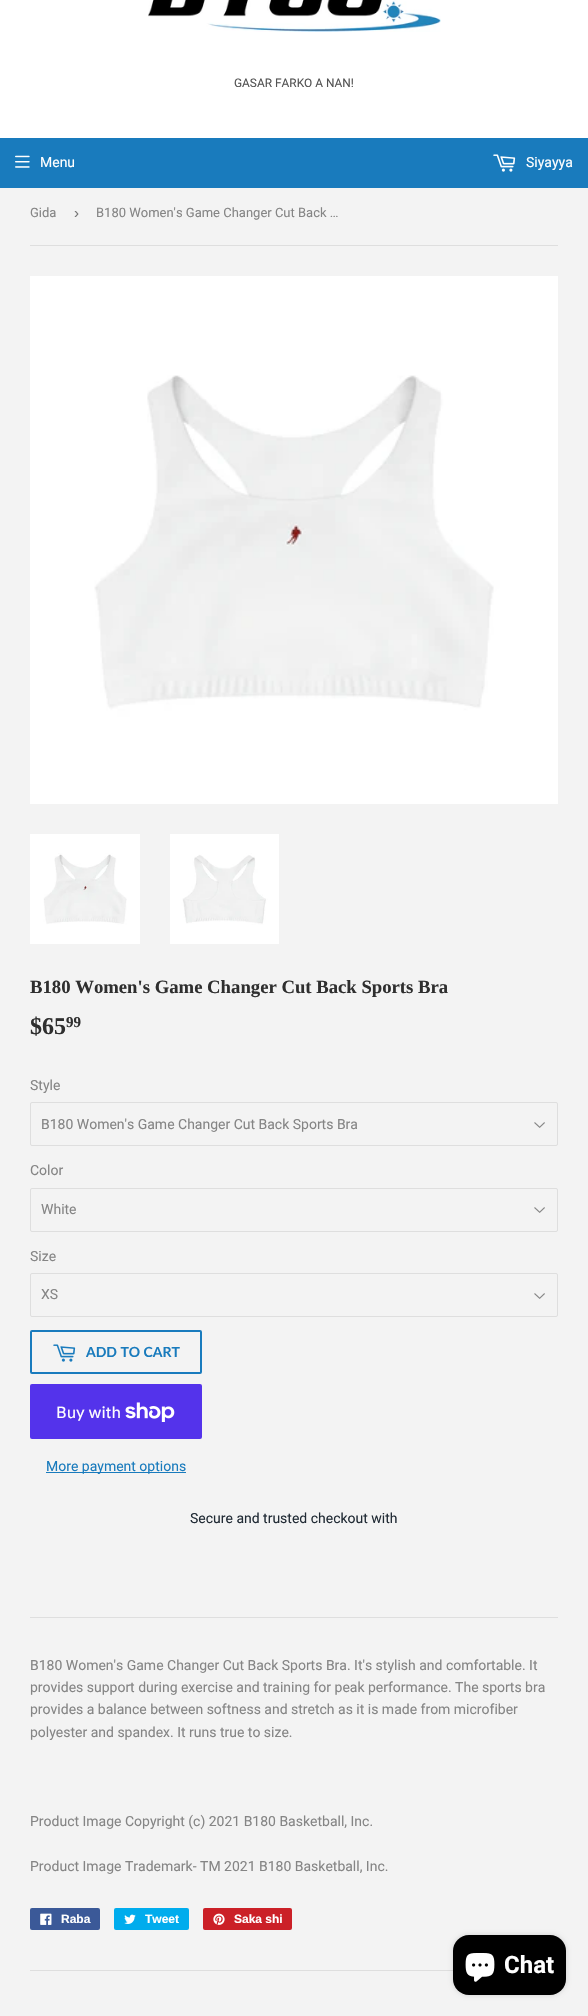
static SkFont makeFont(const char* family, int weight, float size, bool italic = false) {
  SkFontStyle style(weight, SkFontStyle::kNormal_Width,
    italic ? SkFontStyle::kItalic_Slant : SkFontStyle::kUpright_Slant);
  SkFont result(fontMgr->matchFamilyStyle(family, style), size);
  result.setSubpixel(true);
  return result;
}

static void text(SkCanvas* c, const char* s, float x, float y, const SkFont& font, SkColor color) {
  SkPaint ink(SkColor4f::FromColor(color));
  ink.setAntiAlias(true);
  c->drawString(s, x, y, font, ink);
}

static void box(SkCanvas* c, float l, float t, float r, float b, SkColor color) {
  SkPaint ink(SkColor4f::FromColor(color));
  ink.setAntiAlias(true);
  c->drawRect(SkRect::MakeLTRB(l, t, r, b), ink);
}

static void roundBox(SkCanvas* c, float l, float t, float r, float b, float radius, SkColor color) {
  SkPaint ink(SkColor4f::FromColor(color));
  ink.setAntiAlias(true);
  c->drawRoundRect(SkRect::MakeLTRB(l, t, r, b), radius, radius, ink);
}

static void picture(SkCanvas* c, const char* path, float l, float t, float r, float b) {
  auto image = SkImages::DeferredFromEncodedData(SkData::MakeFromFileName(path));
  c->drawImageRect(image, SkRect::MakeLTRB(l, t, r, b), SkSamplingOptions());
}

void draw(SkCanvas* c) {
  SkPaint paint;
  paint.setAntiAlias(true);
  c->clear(0xfff3f3f3);
  box(c, 0, 0, 588, 138, 0xffffffff);
  picture(c, "img_01.png", 148, 0, 441, 32);
  SkFont face1 = makeFont("Roboto", 400, 11.9f);
  text(c, "GASAR FARKO A NAN!", 234, 87, face1, 0xff545454);
  box(c, 0, 138, 588, 188, 0xff197bbd);
  picture(c, "img_02.png", 15, 155, 30, 168);
  SkFont face2 = makeFont("Roboto", 400, 14);
  text(c, "Menu", 40, 167, face2, 0xffffffff);
  picture(c, "img_03.png", 493, 154, 516, 172);
  text(c, "Siyayya", 526, 167, face2, 0xffffffff);
  box(c, 30, 245, 558, 246, 0xffdedede);
  SkFont face3 = makeFont("Roboto", 400, 13);
  text(c, "Gida", 30, 217, face3, 0xff858585);
  SkFont face4 = makeFont("Liberation Sans", 400, 15);
  text(c, "›", 74, 218, face4, 0xff767676);
  text(c, "B180 Women's Game Changer Cut Back …", 96, 217, face3, 0xff858585);
  picture(c, "img_04.png", 30, 276, 558, 804);
  picture(c, "img_05.png", 30, 834, 140, 944);
  picture(c, "img_06.png", 170, 834, 279, 944);
  SkFont face5 = makeFont("Liberation Serif", 700, 18.7f);
  text(c, "B180 Women's Game Changer Cut Back Sports Bra", 30, 993, face5, 0xff2f2f2f);
  SkFont face6 = makeFont("Liberation Serif", 700, 24);
  text(c, "$65", 30, 1034, face6, 0xff2f2f2f);
  SkFont face7 = makeFont("Liberation Serif", 700, 15);
  text(c, "99", 66, 1027, face7, 0xff2f2f2f);
  text(c, "Style", 30, 1090, face2, 0xff858585);
  picture(c, "img_07.png", 534, 1122, 545, 1128);
  paint.setStyle(SkPaint::kStroke_Style);
  paint.setStrokeWidth(1);
  paint.setColor(0xffdedede);
  c->drawRoundRect(SkRect::MakeLTRB(30.5f, 1102.5f, 557.5f, 1145.5f), 1.5f, 1.5f, paint);
  text(c, "B180 Women's Game Changer Cut Back Sports Bra", 41, 1129, face2, 0xff858585);
  text(c, "Color", 30, 1175, face2, 0xff858585);
  picture(c, "img_07.png", 534, 1207, 545, 1213);
  c->drawRoundRect(SkRect::MakeLTRB(30.5f, 1188.5f, 557.5f, 1231.5f), 1.5f, 1.5f, paint);
  text(c, "White", 41, 1214, face2, 0xff858585);
  text(c, "Size", 30, 1261, face2, 0xff858585);
  picture(c, "img_07.png", 534, 1293, 545, 1299);
  c->drawRoundRect(SkRect::MakeLTRB(30.5f, 1273.5f, 557.5f, 1316.5f), 1.5f, 1.5f, paint);
  text(c, "XS", 41, 1299, face2, 0xff858585);
  paint.setStrokeWidth(2);
  paint.setColor(0xff197bbd);
  c->drawRoundRect(SkRect::MakeLTRB(31, 1331, 201, 1373), 1, 1, paint);
  picture(c, "img_08.png", 53, 1344, 76, 1362);
  SkFont face8 = makeFont("Lato", 700, 14);
  text(c, "ADD TO CART", 86, 1357, face8, 0xff197bbd);
  roundBox(c, 30, 1384, 202, 1439, 2, 0xff5433eb);
  SkFont face9 = makeFont("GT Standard", 400, 16);
  text(c, "Buy with", 56, 1418, face9, 0xffffffff);
  picture(c, "img_09.png", 125, 1402, 175, 1422);
  box(c, 46, 1472, 186, 1473, 0xff197bbd);
  text(c, "More payment options", 46, 1471, face2, 0xff197bbd);
  text(c, "Secure and trusted checkout with", 190, 1523, face2, 0xff212b35);
  box(c, 30, 1617, 558, 1618, 0xffdedede);
  text(c, "B180 Women's Game Changer Cut Back Sports Bra. It's stylish and comfortable. It", 30, 1670, face2, 0xff858585);
  text(c, "provides support during exercise and training for peak performance. The sports bra", 30, 1692, face2, 0xff858585);
  text(c, "provides a balance between softness and stretch as it is made from microfiber", 30, 1714, face2, 0xff858585);
  text(c, "polyester and spandex. It runs true to size.", 30, 1737, face2, 0xff858585);
  text(c, "Product Image Copyright (c) 2021 B180 Basketball, Inc.", 30, 1826, face2, 0xff858585);
  text(c, "Product Image Trademark- TM 2021 B180 Basketball, Inc.", 30, 1871, face2, 0xff858585);
  roundBox(c, 30, 1908, 100, 1930, 2, 0xff3b5998);
  picture(c, "img_10.png", 40, 1913, 52, 1925);
  SkFont face10 = makeFont("Liberation Sans", 700, 12);
  text(c, "Raba", 61, 1923, face10, 0xffffffff);
  roundBox(c, 114, 1908, 189, 1930, 2, 0xff00aced);
  picture(c, "img_11.png", 124, 1914, 136, 1924);
  text(c, "Tweet", 145, 1923, face10, 0xffffffff);
  roundBox(c, 203, 1908, 292, 1930, 2, 0xffcb2027);
  picture(c, "img_12.png", 213, 1913, 225, 1925);
  text(c, "Saka shi", 234, 1923, face10, 0xffffffff);
  box(c, 30, 1970, 453, 1971, 0xffdedede);
  paint.setStyle(SkPaint::kFill_Style);
  paint.setColor(0x26000000);
  paint.setMaskFilter(SkMaskFilter::MakeBlur(kNormal_SkBlurStyle, 2.5f));
  c->drawRoundRect(SkRect::MakeLTRB(453, 1935, 566, 1995), 16, 16, paint);
  paint.setMaskFilter(nullptr);
  roundBox(c, 453, 1935, 566, 1995, 16, 0xff000000);
  picture(c, "img_13.png", 465, 1953, 495, 1982);
  SkFont face11 = makeFont("Roboto", 700, 24);
  text(c, "Chat", 504, 1973, face11, 0xffffffff);
}
